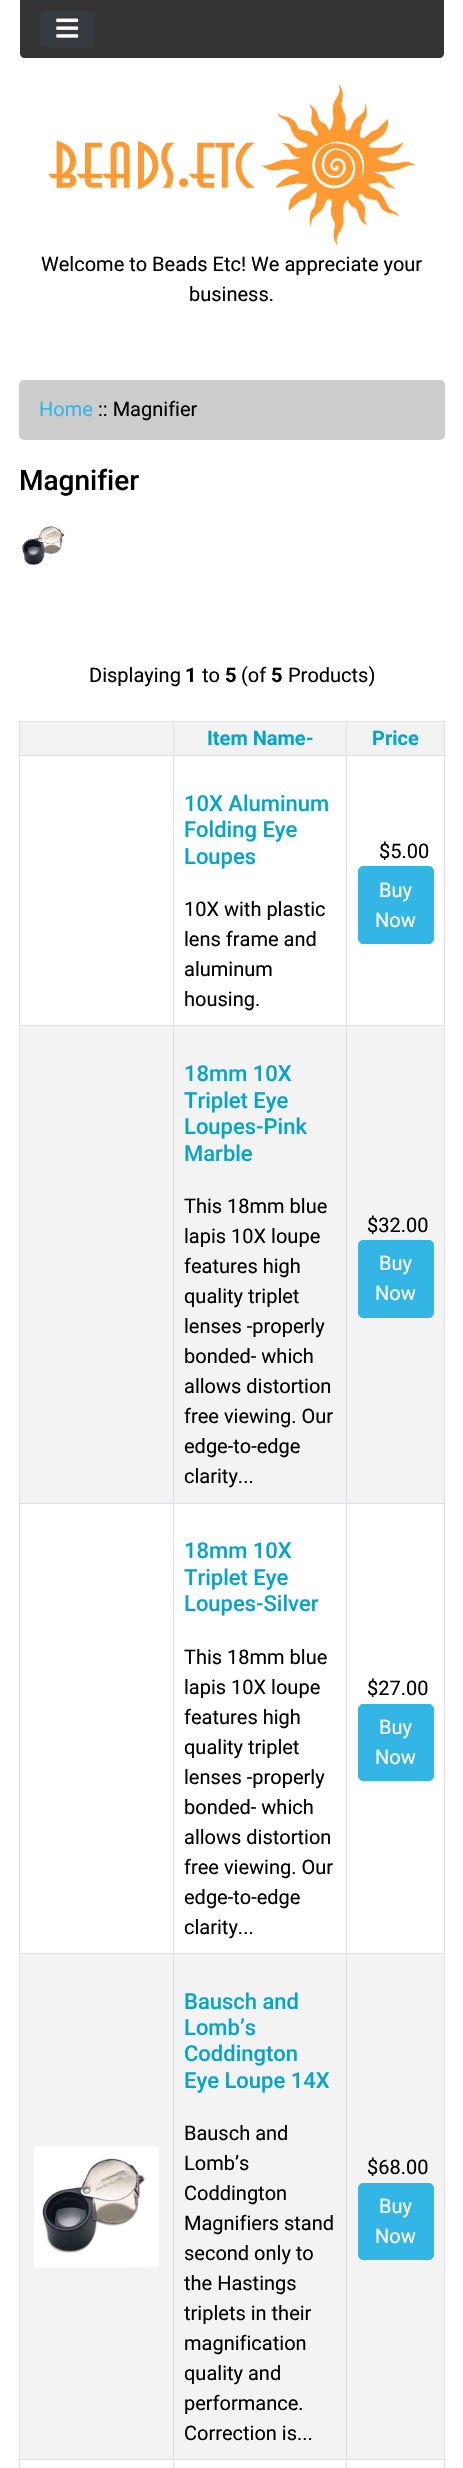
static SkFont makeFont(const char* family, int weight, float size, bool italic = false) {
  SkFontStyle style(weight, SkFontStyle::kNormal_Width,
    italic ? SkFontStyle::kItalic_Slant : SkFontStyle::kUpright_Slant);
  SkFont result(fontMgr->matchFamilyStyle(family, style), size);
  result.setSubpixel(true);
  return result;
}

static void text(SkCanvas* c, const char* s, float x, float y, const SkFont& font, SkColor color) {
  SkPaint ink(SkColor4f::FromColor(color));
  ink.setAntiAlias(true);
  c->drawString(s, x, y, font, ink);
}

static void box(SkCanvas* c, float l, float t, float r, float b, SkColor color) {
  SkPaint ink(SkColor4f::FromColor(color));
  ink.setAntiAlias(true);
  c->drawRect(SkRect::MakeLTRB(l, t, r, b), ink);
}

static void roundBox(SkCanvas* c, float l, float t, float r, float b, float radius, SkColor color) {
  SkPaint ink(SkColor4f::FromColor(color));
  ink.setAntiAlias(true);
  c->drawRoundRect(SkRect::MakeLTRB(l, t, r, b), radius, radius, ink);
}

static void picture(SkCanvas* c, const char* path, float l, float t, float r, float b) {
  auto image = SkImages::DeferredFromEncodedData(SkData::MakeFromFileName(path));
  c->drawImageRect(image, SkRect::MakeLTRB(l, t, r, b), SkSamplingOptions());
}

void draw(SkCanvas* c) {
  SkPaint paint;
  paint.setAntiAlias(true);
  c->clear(0xffffffff);
  paint.setColor(0xff333333);
  c->drawPath(SkPathBuilder().moveTo(20, 0).lineTo(444, 0).lineTo(444, 53).cubicTo(444, 56, 442, 58, 439, 58).lineTo(25, 58).cubicTo(22, 58, 20, 56, 20, 53).close().detach(), paint);
  paint.setColor(0xff343a40);
  c->drawRoundRect(SkRect::MakeLTRB(40.5f, 10.5f, 94.5f, 47.5f), 4.5f, 4.5f, paint);
  paint.setStyle(SkPaint::kStroke_Style);
  paint.setStrokeWidth(1);
  c->drawRoundRect(SkRect::MakeLTRB(40.5f, 10.5f, 94.5f, 47.5f), 4.5f, 4.5f, paint);
  picture(c, "img_01.png", 56, 18, 79, 38);
  picture(c, "img_02.png", 48, 84, 416, 246);
  SkFont face1 = makeFont("Roboto", 400, 20);
  text(c, "Welcome to Beads Etc! We appreciate your", 41, 271, face1, 0xff000000);
  text(c, "business.", 189, 301, face1, 0xff000000);
  roundBox(c, 19, 380, 445, 440, 5, 0xffcccccc);
  text(c, "Home", 39, 416, face1, 0xff33b5e5);
  text(c, ":: Magnifier", 98, 416, face1, 0xff000000);
  SkFont face2 = makeFont("Roboto", 500, 28);
  text(c, "Magnifier", 19, 490, face2, 0xff000000);
  picture(c, "img_03.png", 22, 526, 65, 566);
  text(c, "Displaying", 89, 682, face1, 0xff000000);
  SkFont face3 = makeFont("Roboto", 700, 20);
  text(c, "1", 185, 682, face3, 0xff000000);
  text(c, "to", 202, 682, face1, 0xff000000);
  text(c, "5", 225, 682, face3, 0xff000000);
  text(c, "(of", 241, 682, face1, 0xff000000);
  text(c, "5", 271, 682, face3, 0xff000000);
  text(c, "Products)", 288, 682, face1, 0xff000000);
  box(c, 19, 721, 445, 722, 0xffdee2e6);
  box(c, 444, 721, 445, 2468, 0xffdee2e6);
  box(c, 19, 721, 20, 2468, 0xffdee2e6);
  box(c, 20, 722, 444, 755, 0xfff2f2f2);
  box(c, 346, 755, 445, 756, 0xffdee2e6);
  box(c, 346, 1025, 445, 1026, 0xffdee2e6);
  box(c, 20, 1026, 444, 1503, 0xfff3f3f3);
  box(c, 346, 1503, 445, 1504, 0xffdee2e6);
  box(c, 346, 1953, 445, 1954, 0xffdee2e6);
  box(c, 20, 1954, 444, 2459, 0xfff3f3f3);
  box(c, 346, 2459, 445, 2460, 0xffdee2e6);
  box(c, 346, 2459, 347, 2468, 0xffdee2e6);
  box(c, 173, 2459, 348, 2460, 0xffdee2e6);
  box(c, 346, 1953, 347, 2460, 0xffdee2e6);
  box(c, 173, 1953, 348, 1954, 0xffdee2e6);
  box(c, 346, 1503, 347, 1954, 0xffdee2e6);
  box(c, 173, 1503, 348, 1504, 0xffdee2e6);
  box(c, 346, 1025, 347, 1504, 0xffdee2e6);
  box(c, 173, 1025, 348, 1026, 0xffdee2e6);
  box(c, 346, 755, 347, 1026, 0xffdee2e6);
  box(c, 173, 755, 348, 756, 0xffdee2e6);
  box(c, 173, 2459, 174, 2468, 0xffdee2e6);
  box(c, 19, 2459, 174, 2460, 0xffdee2e6);
  box(c, 173, 1953, 174, 2460, 0xffdee2e6);
  box(c, 19, 1953, 174, 1954, 0xffdee2e6);
  box(c, 173, 1503, 174, 1954, 0xffdee2e6);
  box(c, 19, 1503, 174, 1504, 0xffdee2e6);
  box(c, 173, 1025, 174, 1504, 0xffdee2e6);
  box(c, 19, 1025, 174, 1026, 0xffdee2e6);
  box(c, 173, 755, 174, 1026, 0xffdee2e6);
  box(c, 19, 755, 174, 756, 0xffdee2e6);
  box(c, 173, 721, 174, 756, 0xffdee2e6);
  text(c, "Item Name-", 207, 745, face3, 0xff05a5cb);
  box(c, 346, 721, 347, 756, 0xffdee2e6);
  text(c, "Price", 372, 745, face3, 0xff05a5cb);
  SkFont face4 = makeFont("Roboto", 500, 22);
  text(c, "10X Aluminum", 184, 811, face4, 0xff05a5cb);
  text(c, "Folding Eye", 184, 837, face4, 0xff05a5cb);
  text(c, "Loupes", 184, 864, face4, 0xff05a5cb);
  text(c, "10X with plastic", 184, 916, face1, 0xff000000);
  text(c, "lens frame and", 184, 946, face1, 0xff000000);
  text(c, "aluminum", 184, 976, face1, 0xff000000);
  text(c, "housing.", 184, 1006, face1, 0xff000000);
  text(c, "$5.00", 379, 858, face1, 0xff000000);
  paint.setStyle(SkPaint::kFill_Style);
  paint.setColor(0xff33b5e5);
  c->drawRoundRect(SkRect::MakeLTRB(358.5f, 866.5f, 433.5f, 943.5f), 4.5f, 4.5f, paint);
  paint.setStyle(SkPaint::kStroke_Style);
  c->drawRoundRect(SkRect::MakeLTRB(358.5f, 866.5f, 433.5f, 943.5f), 4.5f, 4.5f, paint);
  text(c, "Buy", 379, 897, face1, 0xffffffff);
  text(c, "Now", 375, 927, face1, 0xffffffff);
  text(c, "18mm 10X", 184, 1081, face4, 0xff05a5cb);
  text(c, "Triplet Eye", 184, 1108, face4, 0xff05a5cb);
  text(c, "Loupes-Pink", 184, 1134, face4, 0xff05a5cb);
  text(c, "Marble", 184, 1161, face4, 0xff05a5cb);
  text(c, "This 18mm blue", 184, 1213, face1, 0xff000000);
  text(c, "lapis 10X loupe", 184, 1243, face1, 0xff000000);
  text(c, "features high", 184, 1273, face1, 0xff000000);
  text(c, "quality triplet", 184, 1303, face1, 0xff000000);
  text(c, "lenses -properly", 184, 1333, face1, 0xff000000);
  text(c, "bonded- which", 184, 1363, face1, 0xff000000);
  text(c, "allows distortion", 184, 1393, face1, 0xff000000);
  text(c, "free viewing. Our", 184, 1423, face1, 0xff000000);
  text(c, "edge-to-edge", 184, 1453, face1, 0xff000000);
  text(c, "clarity...", 184, 1483, face1, 0xff000000);
  text(c, "$32.00", 367, 1232, face1, 0xff000000);
  paint.setStyle(SkPaint::kFill_Style);
  c->drawRoundRect(SkRect::MakeLTRB(358.5f, 1240.5f, 433.5f, 1317.5f), 4.5f, 4.5f, paint);
  paint.setStyle(SkPaint::kStroke_Style);
  c->drawRoundRect(SkRect::MakeLTRB(358.5f, 1240.5f, 433.5f, 1317.5f), 4.5f, 4.5f, paint);
  text(c, "Buy", 379, 1270, face1, 0xffffffff);
  text(c, "Now", 375, 1300, face1, 0xffffffff);
  text(c, "18mm 10X", 184, 1558, face4, 0xff05a5cb);
  text(c, "Triplet Eye", 184, 1585, face4, 0xff05a5cb);
  text(c, "Loupes-Silver", 184, 1611, face4, 0xff05a5cb);
  text(c, "This 18mm blue", 184, 1664, face1, 0xff000000);
  text(c, "lapis 10X loupe", 184, 1694, face1, 0xff000000);
  text(c, "features high", 184, 1724, face1, 0xff000000);
  text(c, "quality triplet", 184, 1754, face1, 0xff000000);
  text(c, "lenses -properly", 184, 1784, face1, 0xff000000);
  text(c, "bonded- which", 184, 1814, face1, 0xff000000);
  text(c, "allows distortion", 184, 1844, face1, 0xff000000);
  text(c, "free viewing. Our", 184, 1874, face1, 0xff000000);
  text(c, "edge-to-edge", 184, 1904, face1, 0xff000000);
  text(c, "clarity...", 184, 1934, face1, 0xff000000);
  text(c, "$27.00", 367, 1695, face1, 0xff000000);
  paint.setStyle(SkPaint::kFill_Style);
  c->drawRoundRect(SkRect::MakeLTRB(358.5f, 1704.5f, 433.5f, 1780.5f), 4.5f, 4.5f, paint);
  paint.setStyle(SkPaint::kStroke_Style);
  c->drawRoundRect(SkRect::MakeLTRB(358.5f, 1704.5f, 433.5f, 1780.5f), 4.5f, 4.5f, paint);
  text(c, "Buy", 379, 1734, face1, 0xffffffff);
  text(c, "Now", 375, 1764, face1, 0xffffffff);
  picture(c, "img_04.png", 34, 2146, 159, 2268);
  text(c, "Bausch and", 184, 2009, face4, 0xff05a5cb);
  text(c, "Lomb’s", 184, 2035, face4, 0xff05a5cb);
  text(c, "Coddington", 184, 2061, face4, 0xff05a5cb);
  text(c, "Eye Loupe 14X", 184, 2088, face4, 0xff05a5cb);
  text(c, "Bausch and", 184, 2140, face1, 0xff000000);
  text(c, "Lomb’s", 184, 2170, face1, 0xff000000);
  text(c, "Coddington", 184, 2200, face1, 0xff000000);
  text(c, "Magnifiers stand", 184, 2230, face1, 0xff000000);
  text(c, "second only to", 184, 2260, face1, 0xff000000);
  text(c, "the Hastings", 184, 2290, face1, 0xff000000);
  text(c, "triplets in their", 184, 2320, face1, 0xff000000);
  text(c, "magnification", 184, 2350, face1, 0xff000000);
  text(c, "quality and", 184, 2380, face1, 0xff000000);
  text(c, "performance.", 184, 2410, face1, 0xff000000);
  text(c, "Correction is...", 184, 2440, face1, 0xff000000);
  text(c, "$68.00", 367, 2174, face1, 0xff000000);
  paint.setStyle(SkPaint::kFill_Style);
  c->drawRoundRect(SkRect::MakeLTRB(358.5f, 2183.5f, 433.5f, 2259.5f), 4.5f, 4.5f, paint);
  paint.setStyle(SkPaint::kStroke_Style);
  c->drawRoundRect(SkRect::MakeLTRB(358.5f, 2183.5f, 433.5f, 2259.5f), 4.5f, 4.5f, paint);
  text(c, "Buy", 379, 2213, face1, 0xffffffff);
  text(c, "Now", 375, 2243, face1, 0xffffffff);
}
